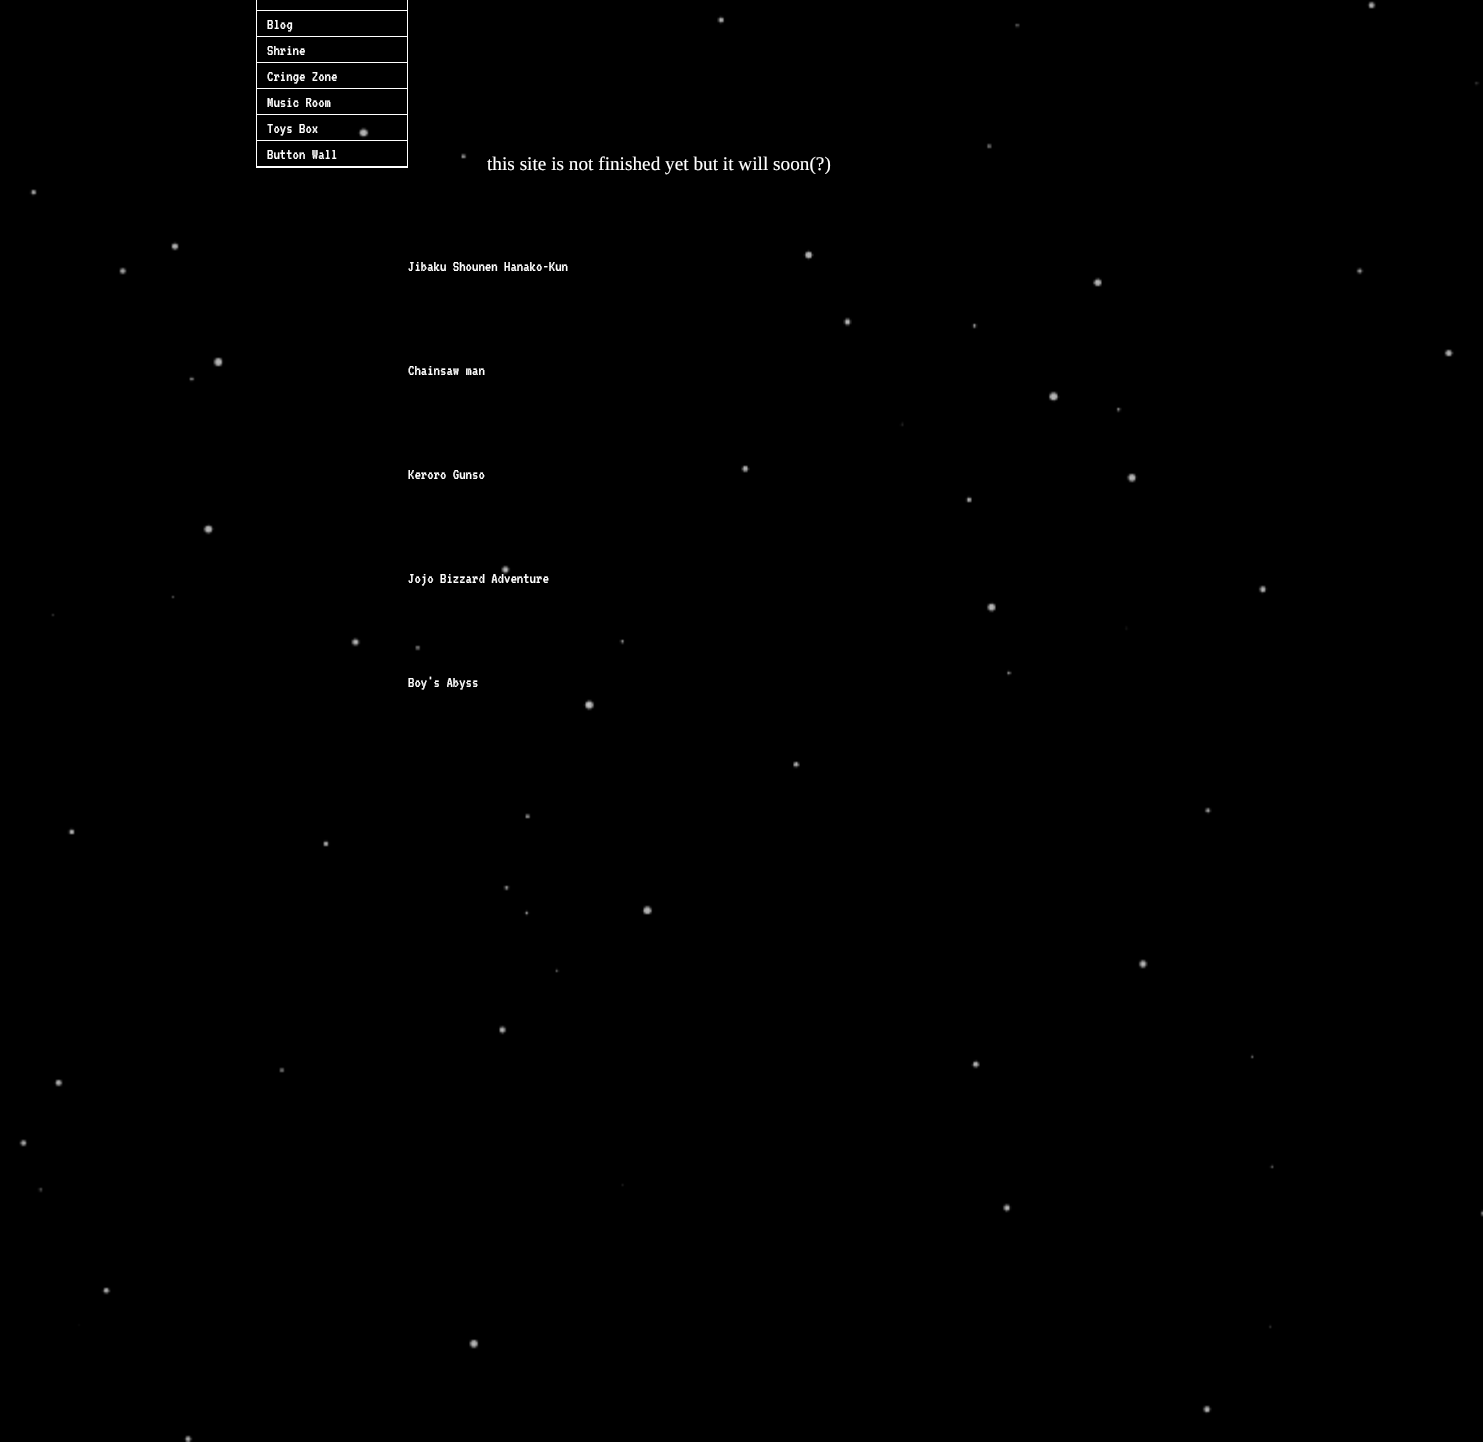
static SkFont makeFont(const char* family, int weight, float size, bool italic = false) {
  SkFontStyle style(weight, SkFontStyle::kNormal_Width,
    italic ? SkFontStyle::kItalic_Slant : SkFontStyle::kUpright_Slant);
  SkFont result(fontMgr->matchFamilyStyle(family, style), size);
  result.setSubpixel(true);
  return result;
}

static void text(SkCanvas* c, const char* s, float x, float y, const SkFont& font, SkColor color) {
  SkPaint ink(SkColor4f::FromColor(color));
  ink.setAntiAlias(true);
  c->drawString(s, x, y, font, ink);
}

static void box(SkCanvas* c, float l, float t, float r, float b, SkColor color) {
  SkPaint ink(SkColor4f::FromColor(color));
  ink.setAntiAlias(true);
  c->drawRect(SkRect::MakeLTRB(l, t, r, b), ink);
}

static void picture(SkCanvas* c, const char* path, float l, float t, float r, float b) {
  auto image = SkImages::DeferredFromEncodedData(SkData::MakeFromFileName(path));
  c->drawImageRect(image, SkRect::MakeLTRB(l, t, r, b), SkSamplingOptions());
}

void draw(SkCanvas* c) {
  SkPaint paint;
  paint.setAntiAlias(true);
  c->clear(0xff000000);
  paint.setStyle(SkPaint::kStroke_Style);
  paint.setStrokeWidth(1);
  paint.setColor(0xffffffff);
  c->drawRect(SkRect::MakeLTRB(256.5f, -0.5f, 407.5f, 167.5f), paint);
  box(c, 257, 10, 407, 11, 0xffffffff);
  box(c, 257, 36, 407, 37, 0xffffffff);
  SkFont face1 = makeFont("VT323", 400, 16);
  text(c, "Blog", 267, 29, face1, 0xffffffff);
  box(c, 257, 62, 407, 63, 0xffffffff);
  text(c, "Shrine", 267, 55, face1, 0xffffffff);
  box(c, 257, 88, 407, 89, 0xffffffff);
  text(c, "Cringe Zone", 267, 81, face1, 0xffffffff);
  box(c, 257, 114, 407, 115, 0xffffffff);
  text(c, "Music Room", 267, 107, face1, 0xffffffff);
  box(c, 257, 140, 407, 141, 0xffffffff);
  text(c, "Toys Box", 267, 133, face1, 0xffffffff);
  box(c, 257, 166, 407, 167, 0xffffffff);
  text(c, "Button Wall", 267, 159, face1, 0xffffffff);
  text(c, "Jibaku Shounen Hanako-Kun", 408, 271, face1, 0xffffffff);
  text(c, "Chainsaw man", 408, 375, face1, 0xffffffff);
  text(c, "Keroro Gunso", 408, 479, face1, 0xffffffff);
  text(c, "Jojo Bizzard Adventure", 408, 583, face1, 0xffffffff);
  text(c, "Boy's Abyss", 408, 687, face1, 0xffffffff);
  SkFont face2 = makeFont("Liberation Serif", 400, 19.25f);
  text(c, "this site is not finished yet but it will soon(?)", 487, 170, face2, 0xffffffff);
  picture(c, "img_01.png", 19, 1, 1483, 1442);
}
